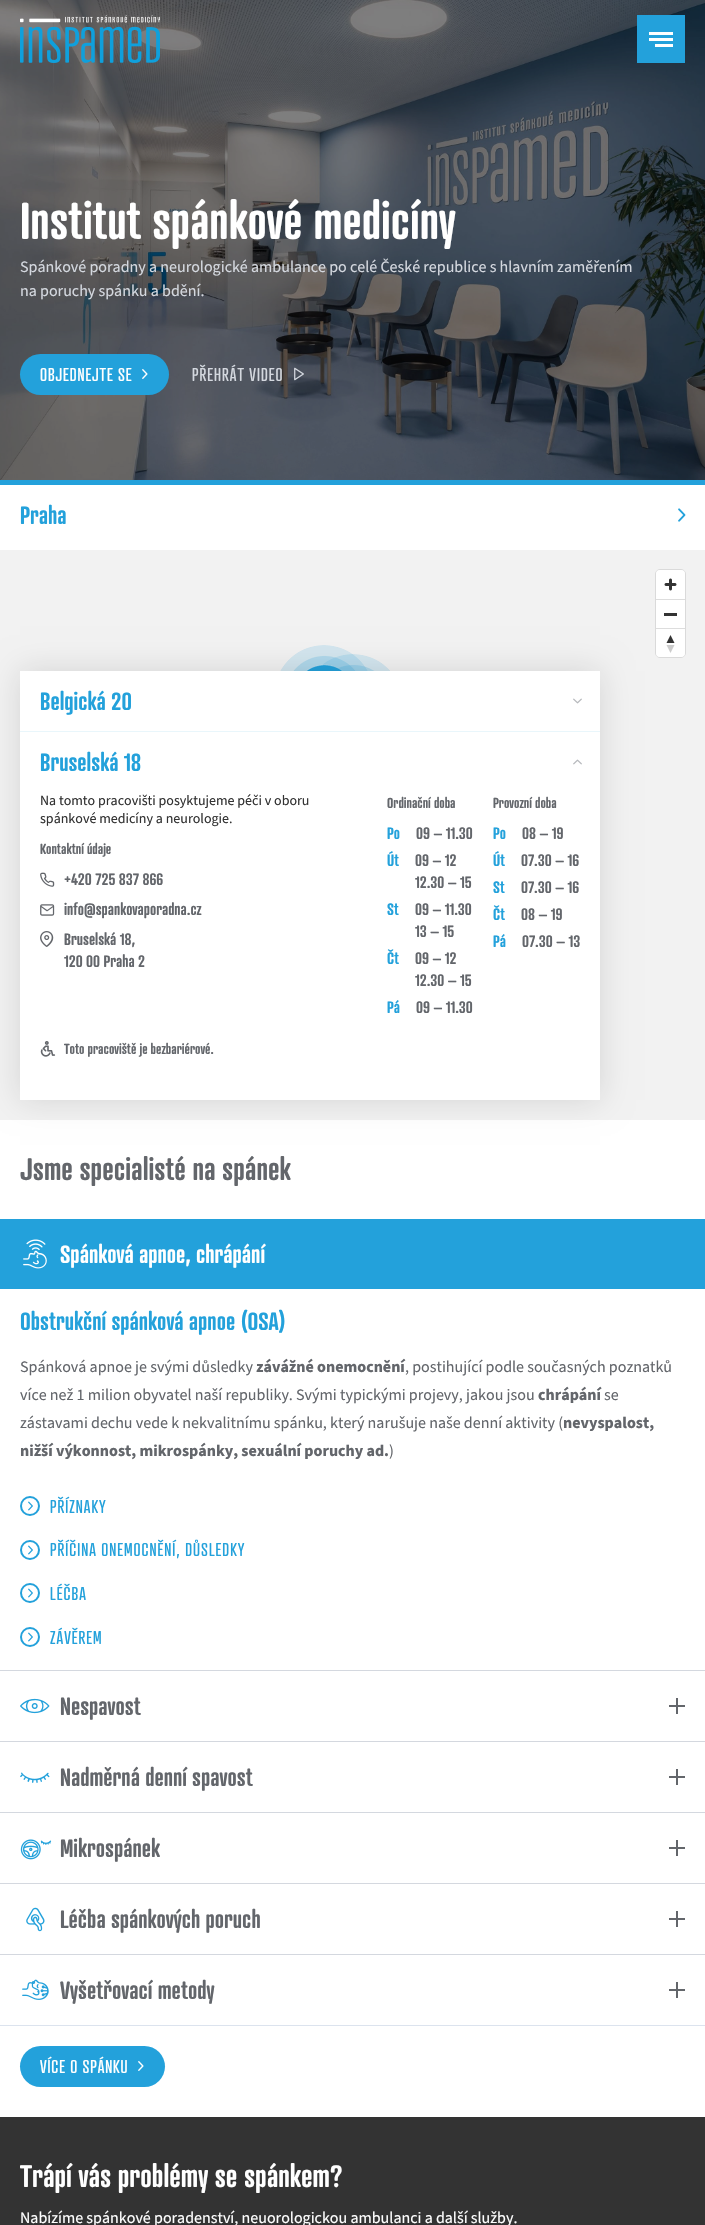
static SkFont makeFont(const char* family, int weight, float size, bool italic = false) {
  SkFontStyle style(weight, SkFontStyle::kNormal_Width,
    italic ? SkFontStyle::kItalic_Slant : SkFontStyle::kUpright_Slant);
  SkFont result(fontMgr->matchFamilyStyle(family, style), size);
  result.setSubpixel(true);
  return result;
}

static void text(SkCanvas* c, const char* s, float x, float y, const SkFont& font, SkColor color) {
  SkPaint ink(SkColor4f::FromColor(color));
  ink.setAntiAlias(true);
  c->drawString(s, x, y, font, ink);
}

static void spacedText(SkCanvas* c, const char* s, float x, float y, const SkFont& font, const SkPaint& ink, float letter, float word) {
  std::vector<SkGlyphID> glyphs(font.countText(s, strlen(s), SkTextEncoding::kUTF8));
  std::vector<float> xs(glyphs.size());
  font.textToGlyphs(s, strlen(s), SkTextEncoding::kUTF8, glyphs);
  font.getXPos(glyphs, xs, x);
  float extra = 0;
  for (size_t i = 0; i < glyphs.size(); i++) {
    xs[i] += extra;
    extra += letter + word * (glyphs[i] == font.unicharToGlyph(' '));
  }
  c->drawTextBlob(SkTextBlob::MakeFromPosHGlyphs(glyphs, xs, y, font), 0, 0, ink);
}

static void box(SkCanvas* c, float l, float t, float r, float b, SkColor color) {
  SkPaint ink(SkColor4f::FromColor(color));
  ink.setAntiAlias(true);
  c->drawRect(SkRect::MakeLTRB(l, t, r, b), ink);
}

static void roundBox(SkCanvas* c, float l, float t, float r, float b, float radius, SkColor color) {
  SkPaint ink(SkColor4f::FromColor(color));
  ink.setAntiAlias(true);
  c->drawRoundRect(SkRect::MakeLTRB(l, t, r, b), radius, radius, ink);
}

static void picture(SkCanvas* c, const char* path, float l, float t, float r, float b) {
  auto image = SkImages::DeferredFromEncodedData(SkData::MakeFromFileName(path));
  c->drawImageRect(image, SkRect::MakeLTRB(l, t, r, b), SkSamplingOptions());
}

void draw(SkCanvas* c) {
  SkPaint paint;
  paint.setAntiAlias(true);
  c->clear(0xffffffff);
  picture(c, "img_02.png", 0, 0, 705, 480);
  picture(c, "img_01.png", 20, 15, 160, 63);
  box(c, 637, 15, 685, 63, 0xff23a1db);
  box(c, 649, 32, 673, 35, 0xffffffff);
  box(c, 649, 38, 673, 41, 0xffffffff);
  box(c, 655, 44, 673, 47, 0xffffffff);
  SkFont face1 = makeFont("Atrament", 600, 50);
  text(c, "Institut spánkové medicíny", 20, 239, face1, 0xffffffff);
  SkFont face2 = makeFont("Source Sans Pro", 400, 16);
  text(c, "Spánkové poradny a neurologické ambulance po celé České republice s hlavním zaměřením", 20, 272, face2, 0xffd4d8df);
  text(c, "na poruchy spánku a bdění.", 20, 296, face2, 0xffd4d8df);
  roundBox(c, 20, 354, 169, 395, 20.5f, 0xff23a1db);
  SkFont face3 = makeFont("Atrament", 400, 18);
  paint.setColor(0xffffffff);
  spacedText(c, "OBJEDNEJTE SE", 40, 381, face3, paint, 0.9f, 0);
  picture(c, "img_03.png", 142, 369, 148, 379);
  paint.setColor(0xffd4d8df);
  spacedText(c, "PŘEHRÁT VIDEO", 192, 381, face3, paint, 1, 0);
  picture(c, "img_04.png", 294, 367, 304, 381);
  box(c, 0, 480, 705, 485, 0xff23a1db);
  SkFont face4 = makeFont("Atrament", 600, 24);
  text(c, "Praha", 20, 524, face4, 0xff23a1db);
  picture(c, "img_05.png", 678, 508, 686, 522);
  box(c, 0, 550, 705, 1120, 0xfff2f2f2);
  picture(c, "img_13.png", 321, 654, 390, 671);
  picture(c, "img_12.png", 280, 645, 368, 671);
  paint.setColor(0x21000000);
  paint.setMaskFilter(SkMaskFilter::MakeBlur(kNormal_SkBlurStyle, 15));
  c->drawRect(SkRect::MakeLTRB(20, 671, 600, 1100), paint);
  paint.setMaskFilter(nullptr);
  box(c, 20, 671, 600, 1100, 0xffffffff);
  box(c, 20, 731, 600, 732, 0xffe9f6fb);
  text(c, "Belgická 20", 40, 710, face4, 0xff23a1db);
  picture(c, "img_06.png", 573, 698, 582, 704);
  text(c, "Bruselská 18", 40, 771, face4, 0xff23a1db);
  picture(c, "img_07.png", 573, 759, 582, 765);
  SkFont face5 = makeFont("Source Sans Pro", 400, 14);
  text(c, "Na tomto pracovišti posyktujeme péči v oboru", 40, 805, face5, 0xff333333);
  text(c, "spánkové medicíny a neurologie.", 40, 823, face5, 0xff333333);
  SkFont face6 = makeFont("Atrament", 600, 14);
  text(c, "Kontaktní údaje", 40, 854, face6, 0xff63666b);
  picture(c, "img_08.png", 40, 872, 55, 887);
  SkFont face7 = makeFont("Atrament", 600, 16);
  text(c, "+420 725 837 866", 64, 885, face7, 0xff63666b);
  picture(c, "img_09.png", 40, 904, 55, 916);
  text(c, "info@spankovaporadna.cz", 64, 915, face7, 0xff63666b);
  picture(c, "img_10.png", 40, 931, 54, 947);
  text(c, "Bruselská 18,", 64, 945, face7, 0xff63666b);
  text(c, "120 00 Praha 2", 64, 967, face7, 0xff63666b);
  text(c, "Ordinační doba", 387, 808, face6, 0xff63666b);
  text(c, "Po", 387, 839, face7, 0xff23a1db);
  text(c, "09 – 11.30", 416, 839, face7, 0xff63666b);
  text(c, "Út", 387, 866, face7, 0xff23a1db);
  text(c, "09 – 12", 415, 866, face7, 0xff63666b);
  text(c, "12.30 – 15", 415, 888, face7, 0xff63666b);
  text(c, "St", 387, 915, face7, 0xff23a1db);
  text(c, "09 – 11.30", 415, 915, face7, 0xff63666b);
  text(c, "13 – 15", 415, 937, face7, 0xff63666b);
  text(c, "Čt", 387, 964, face7, 0xff23a1db);
  text(c, "09 – 12", 415, 964, face7, 0xff63666b);
  text(c, "12.30 – 15", 415, 986, face7, 0xff63666b);
  text(c, "Pá", 387, 1013, face7, 0xff23a1db);
  text(c, "09 – 11.30", 416, 1013, face7, 0xff63666b);
  text(c, "Provozní doba", 493, 808, face6, 0xff63666b);
  text(c, "Po", 493, 839, face7, 0xff23a1db);
  text(c, "08 – 19", 522, 839, face7, 0xff63666b);
  text(c, "Út", 493, 866, face7, 0xff23a1db);
  text(c, "07.30 – 16", 521, 866, face7, 0xff63666b);
  text(c, "St", 493, 893, face7, 0xff23a1db);
  text(c, "07.30 – 16", 521, 893, face7, 0xff63666b);
  text(c, "Čt", 493, 920, face7, 0xff23a1db);
  text(c, "08 – 19", 521, 920, face7, 0xff63666b);
  text(c, "Pá", 493, 947, face7, 0xff23a1db);
  text(c, "07.30 – 13", 522, 947, face7, 0xff63666b);
  picture(c, "img_11.png", 40, 1041, 56, 1057);
  text(c, "Toto pracoviště je bezbariérové.", 64, 1054, face6, 0xff63666b);
  paint.setStyle(SkPaint::kStroke_Style);
  paint.setStrokeWidth(1);
  paint.setColor(0xffdadada);
  c->drawRoundRect(SkRect::MakeLTRB(655.5f, 569.5f, 685.5f, 657.5f), 4.5f, 4.5f, paint);
  roundBox(c, 656, 570, 685, 657, 4, 0xffffffff);
  picture(c, "img_14.png", 664, 578, 677, 591);
  box(c, 656, 599, 685, 600, 0xffdddddd);
  box(c, 664, 613, 677, 616, 0xff333333);
  box(c, 656, 628, 685, 629, 0xffdddddd);
  picture(c, "img_15.png", 666, 635, 675, 653);
  SkFont face8 = makeFont("Atrament", 600, 30);
  text(c, "Jsme specialisté na spánek", 20, 1180, face8, 0xff63666b);
  box(c, 0, 1219, 705, 1289, 0xff23a1db);
  picture(c, "img_16.png", 23, 1239, 47, 1269);
  text(c, "Spánková apnoe, chrápání", 60, 1263, face4, 0xffffffff);
  text(c, "Obstrukční spánková apnoe (OSA)", 20, 1330, face4, 0xff23a1db);
  text(c, "Spánková apnoe je svými důsledky", 20, 1372, face2, 0xff63666b);
  SkFont face9 = makeFont("Source Sans Pro", 700, 16);
  text(c, "závážné onemocnění", 256, 1372, face9, 0xff63666b);
  text(c, ", postihující podle současných poznatků", 405, 1372, face2, 0xff63666b);
  text(c, "více než 1 milion obyvatel naší republiky. Svými typickými projevy, jakou jsou", 20, 1400, face2, 0xff63666b);
  text(c, "chrápání", 538, 1400, face9, 0xff63666b);
  text(c, "se", 604, 1400, face2, 0xff63666b);
  text(c, "zástavami dechu vede k nekvalitnímu spánku, který narušuje naše denní aktivity (", 20, 1428, face2, 0xff63666b);
  text(c, "nevyspalost,", 563, 1428, face9, 0xff63666b);
  text(c, "nižší výkonnost, mikrospánky, sexuální poruchy ad.", 20, 1456, face9, 0xff63666b);
  text(c, ")", 389, 1456, face2, 0xff63666b);
  paint.setStrokeWidth(2);
  paint.setColor(0xff23a1db);
  c->drawCircle(30, 1506, 9, paint);
  picture(c, "img_17.png", 28, 1501, 33, 1511);
  paint.setStyle(SkPaint::kFill_Style);
  spacedText(c, "PŘÍZNAKY", 50, 1513, face3, paint, 1, 0);
  paint.setStyle(SkPaint::kStroke_Style);
  c->drawCircle(30, 1550, 9, paint);
  picture(c, "img_17.png", 28, 1545, 33, 1555);
  paint.setStyle(SkPaint::kFill_Style);
  spacedText(c, "PŘÍČINA ONEMOCNĚNÍ, DŮSLEDKY", 50, 1556, face3, paint, 1, 0);
  paint.setStyle(SkPaint::kStroke_Style);
  c->drawCircle(30, 1593, 9, paint);
  picture(c, "img_17.png", 28, 1588, 33, 1598);
  paint.setStyle(SkPaint::kFill_Style);
  spacedText(c, "LÉČBA", 50, 1600, face3, paint, 1, 0);
  paint.setStyle(SkPaint::kStroke_Style);
  c->drawCircle(30, 1637, 9, paint);
  picture(c, "img_17.png", 28, 1632, 33, 1642);
  paint.setStyle(SkPaint::kFill_Style);
  spacedText(c, "ZÁVĚREM", 50, 1644, face3, paint, 1, 0);
  box(c, 0, 1670, 705, 1671, 0xffd4d8df);
  picture(c, "img_18.png", 20, 1698, 50, 1714);
  text(c, "Nespavost", 60, 1715, face4, 0xff63666b);
  picture(c, "img_19.png", 669, 1698, 685, 1714);
  box(c, 0, 1741, 705, 1742, 0xffd4d8df);
  picture(c, "img_20.png", 20, 1772, 50, 1783);
  text(c, "Nadměrná denní spavost", 60, 1786, face4, 0xff63666b);
  picture(c, "img_19.png", 669, 1769, 685, 1785);
  box(c, 0, 1812, 705, 1813, 0xffd4d8df);
  picture(c, "img_21.png", 20, 1839, 52, 1860);
  text(c, "Mikrospánek", 60, 1857, face4, 0xff63666b);
  picture(c, "img_19.png", 669, 1840, 685, 1856);
  box(c, 0, 1883, 705, 1884, 0xffd4d8df);
  picture(c, "img_22.png", 26, 1907, 45, 1932);
  text(c, "Léčba spánkových poruch", 60, 1928, face4, 0xff63666b);
  picture(c, "img_19.png", 669, 1911, 685, 1927);
  box(c, 0, 1954, 705, 1955, 0xffd4d8df);
  box(c, 0, 2025, 705, 2026, 0xffdce3ee);
  picture(c, "img_23.png", 22, 1979, 49, 2000);
  text(c, "Vyšetřovací metody", 60, 1999, face4, 0xff63666b);
  picture(c, "img_19.png", 669, 1982, 685, 1998);
  roundBox(c, 20, 2046, 165, 2087, 20.5f, 0xff23a1db);
  paint.setColor(0xffffffff);
  spacedText(c, "VÍCE O SPÁNKU", 40, 2073, face3, paint, 0.9f, 0);
  picture(c, "img_03.png", 138, 2061, 144, 2071);
  box(c, 0, 2117, 705, 2225, 0xff333333);
  text(c, "Trápí vás problémy se spánkem?", 20, 2187, face8, 0xffffffff);
  text(c, "Nabízíme spánkové poradenství, neuorologickou ambulanci a další služby.", 20, 2223, face2, 0xffffffff);
}
